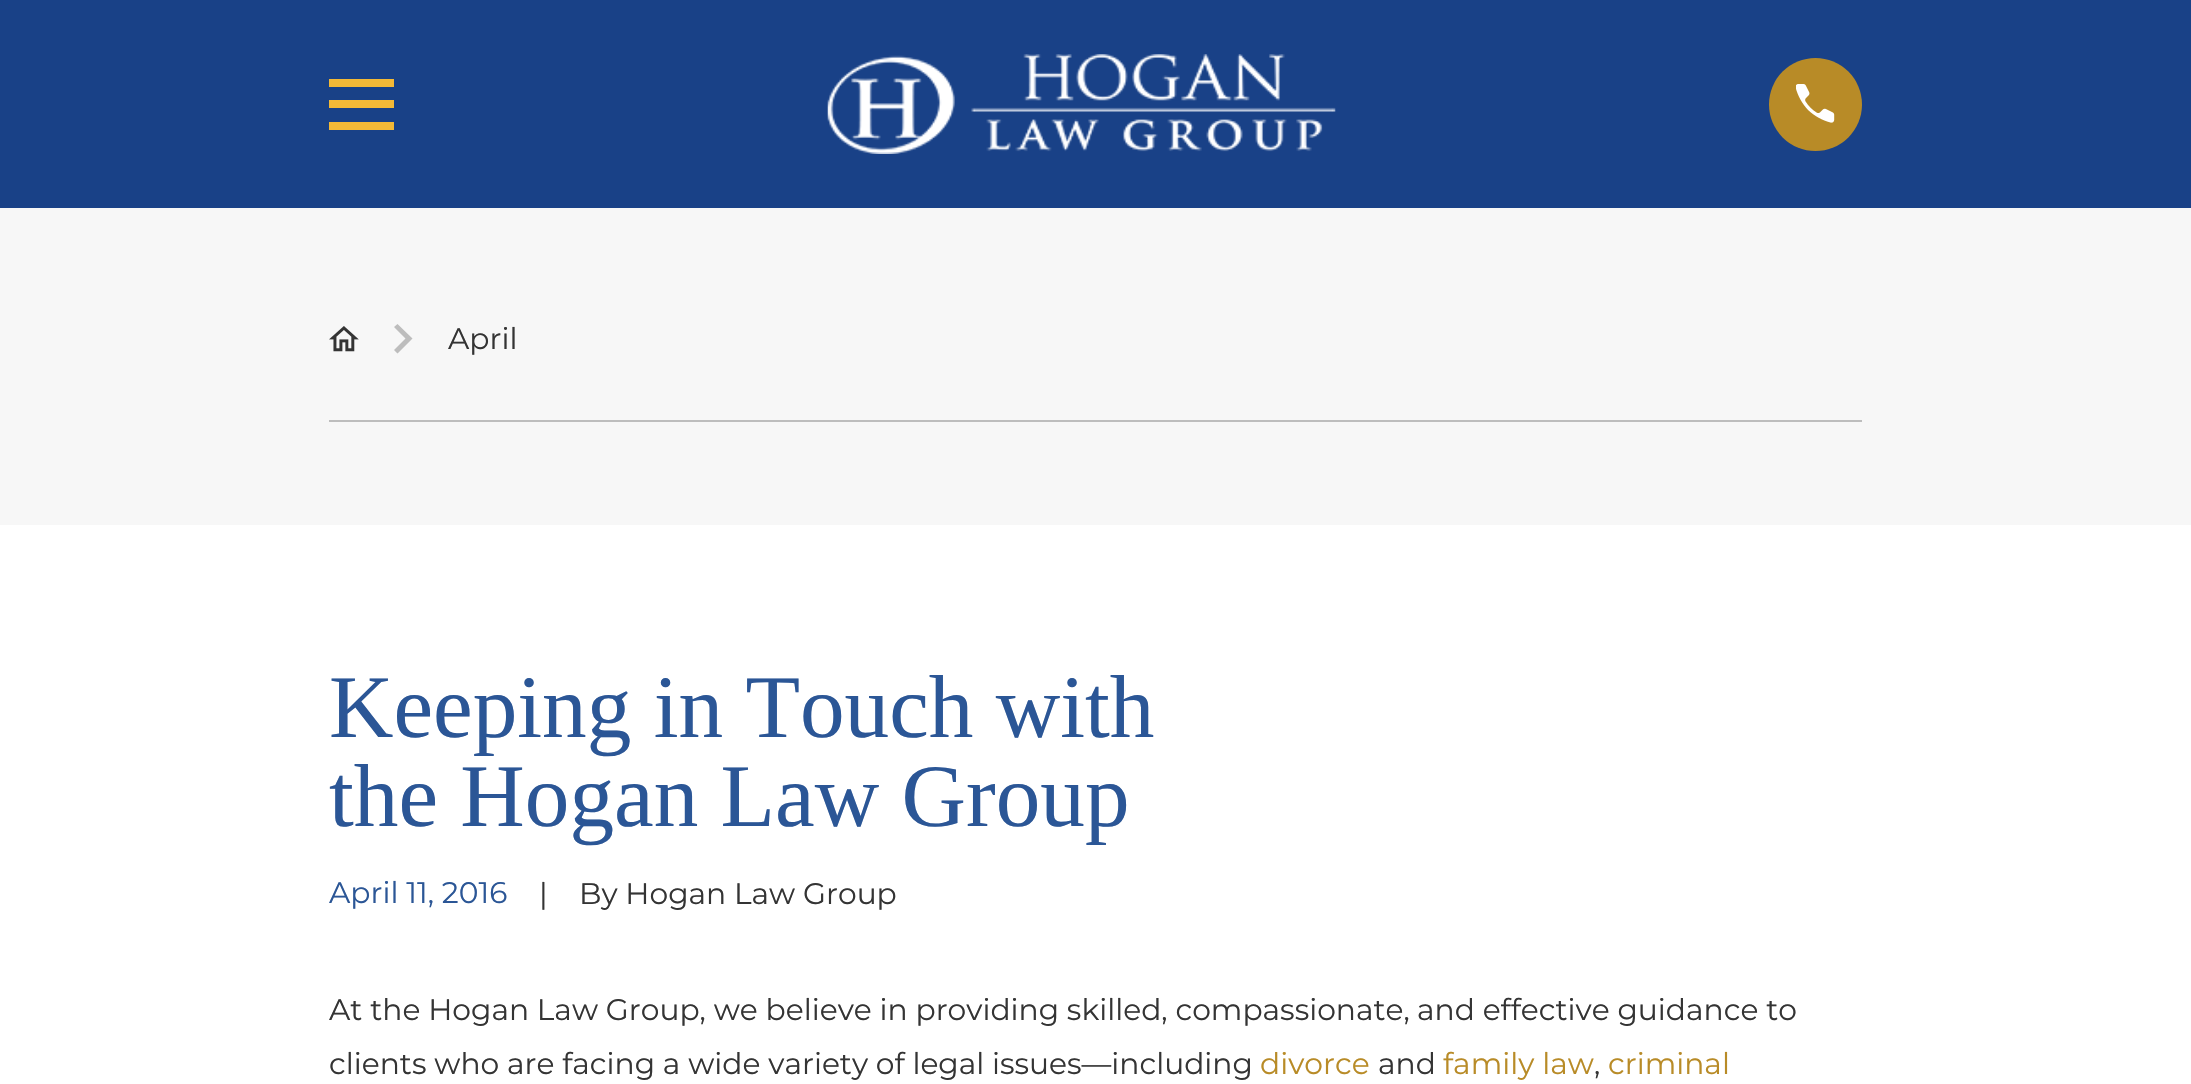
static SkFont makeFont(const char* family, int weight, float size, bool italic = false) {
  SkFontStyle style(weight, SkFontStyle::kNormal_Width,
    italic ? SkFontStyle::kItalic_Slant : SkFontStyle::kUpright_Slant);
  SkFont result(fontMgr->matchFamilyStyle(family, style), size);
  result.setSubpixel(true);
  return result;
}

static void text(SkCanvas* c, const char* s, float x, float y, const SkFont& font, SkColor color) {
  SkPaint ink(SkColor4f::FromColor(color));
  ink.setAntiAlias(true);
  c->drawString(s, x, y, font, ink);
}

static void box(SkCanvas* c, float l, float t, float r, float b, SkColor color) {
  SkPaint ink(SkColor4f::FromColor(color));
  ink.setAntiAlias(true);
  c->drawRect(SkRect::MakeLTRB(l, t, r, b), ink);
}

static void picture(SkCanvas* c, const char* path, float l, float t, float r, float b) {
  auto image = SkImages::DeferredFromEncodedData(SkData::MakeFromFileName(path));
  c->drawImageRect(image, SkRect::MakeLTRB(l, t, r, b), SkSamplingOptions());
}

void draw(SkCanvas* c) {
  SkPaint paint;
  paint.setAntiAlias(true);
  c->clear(0xffffffff);
  box(c, 0, 0, 2191, 208, 0xff194187);
  paint.setColor(0xfff3b937);
  c->drawPath(SkPathBuilder().moveTo(329, 79).lineTo(329, 87).lineTo(394, 87).lineTo(394, 79).close().moveTo(329, 100).lineTo(329, 108).lineTo(394, 108).lineTo(394, 100).close().moveTo(329, 122).lineTo(329, 130).lineTo(394, 130).lineTo(394, 122).close().detach(), paint);
  picture(c, "img_01.png", 827, 54, 1336, 154);
  paint.setColor(0xffb88b27);
  c->drawCircle(1815.5f, 104.5f, 46.5f, paint);
  picture(c, "img_02.png", 1796, 84, 1835, 123);
  box(c, 0, 208, 2191, 525, 0xfff7f7f7);
  box(c, 329, 420, 1862, 422, 0xffbdbdbd);
  picture(c, "img_03.png", 329, 326, 359, 352);
  paint.setColor(0xffbdbdbd);
  c->drawPath(SkPathBuilder().moveTo(397.5f, 324).lineTo(394, 327).lineTo(405.5f, 338.5f).lineTo(394, 350).lineTo(397.5f, 353.5f).lineTo(412.5f, 338.5f).close().detach(), paint);
  SkFont face1 = makeFont("Montserrat", 400, 29.75f);
  text(c, "April", 448, 349, face1, 0xff343434);
  SkFont face2 = makeFont("Liberation Serif", 400, 89.25f);
  text(c, "Keeping in Touch with", 329, 737, face2, 0xff2b5696);
  text(c, "the Hogan Law Group", 329, 826, face2, 0xff2b5696);
  text(c, "April 11, 2016", 329, 903, face1, 0xff2b5696);
  text(c, "|", 539, 904, face1, 0xff343434);
  text(c, "By Hogan Law Group", 579, 904, face1, 0xff343434);
  text(c, "At the Hogan Law Group, we believe in providing skilled, compassionate,", 329, 1020, face1, 0xff343434);
  text(c, "and effective guidance to", 1417, 1020, face1, 0xff343434);
  text(c, "clients who are facing a wide variety of legal", 329, 1074, face1, 0xff343434);
  text(c, "issues—including", 992, 1074, face1, 0xff343434);
  text(c, "divorce", 1260, 1074, face1, 0xffb88b27);
  text(c, "and", 1378, 1074, face1, 0xff343434);
  text(c, "family law", 1443, 1074, face1, 0xffb88b27);
  text(c, ",", 1594, 1074, face1, 0xff343434);
  text(c, "criminal", 1608, 1074, face1, 0xffb88b27);
}
